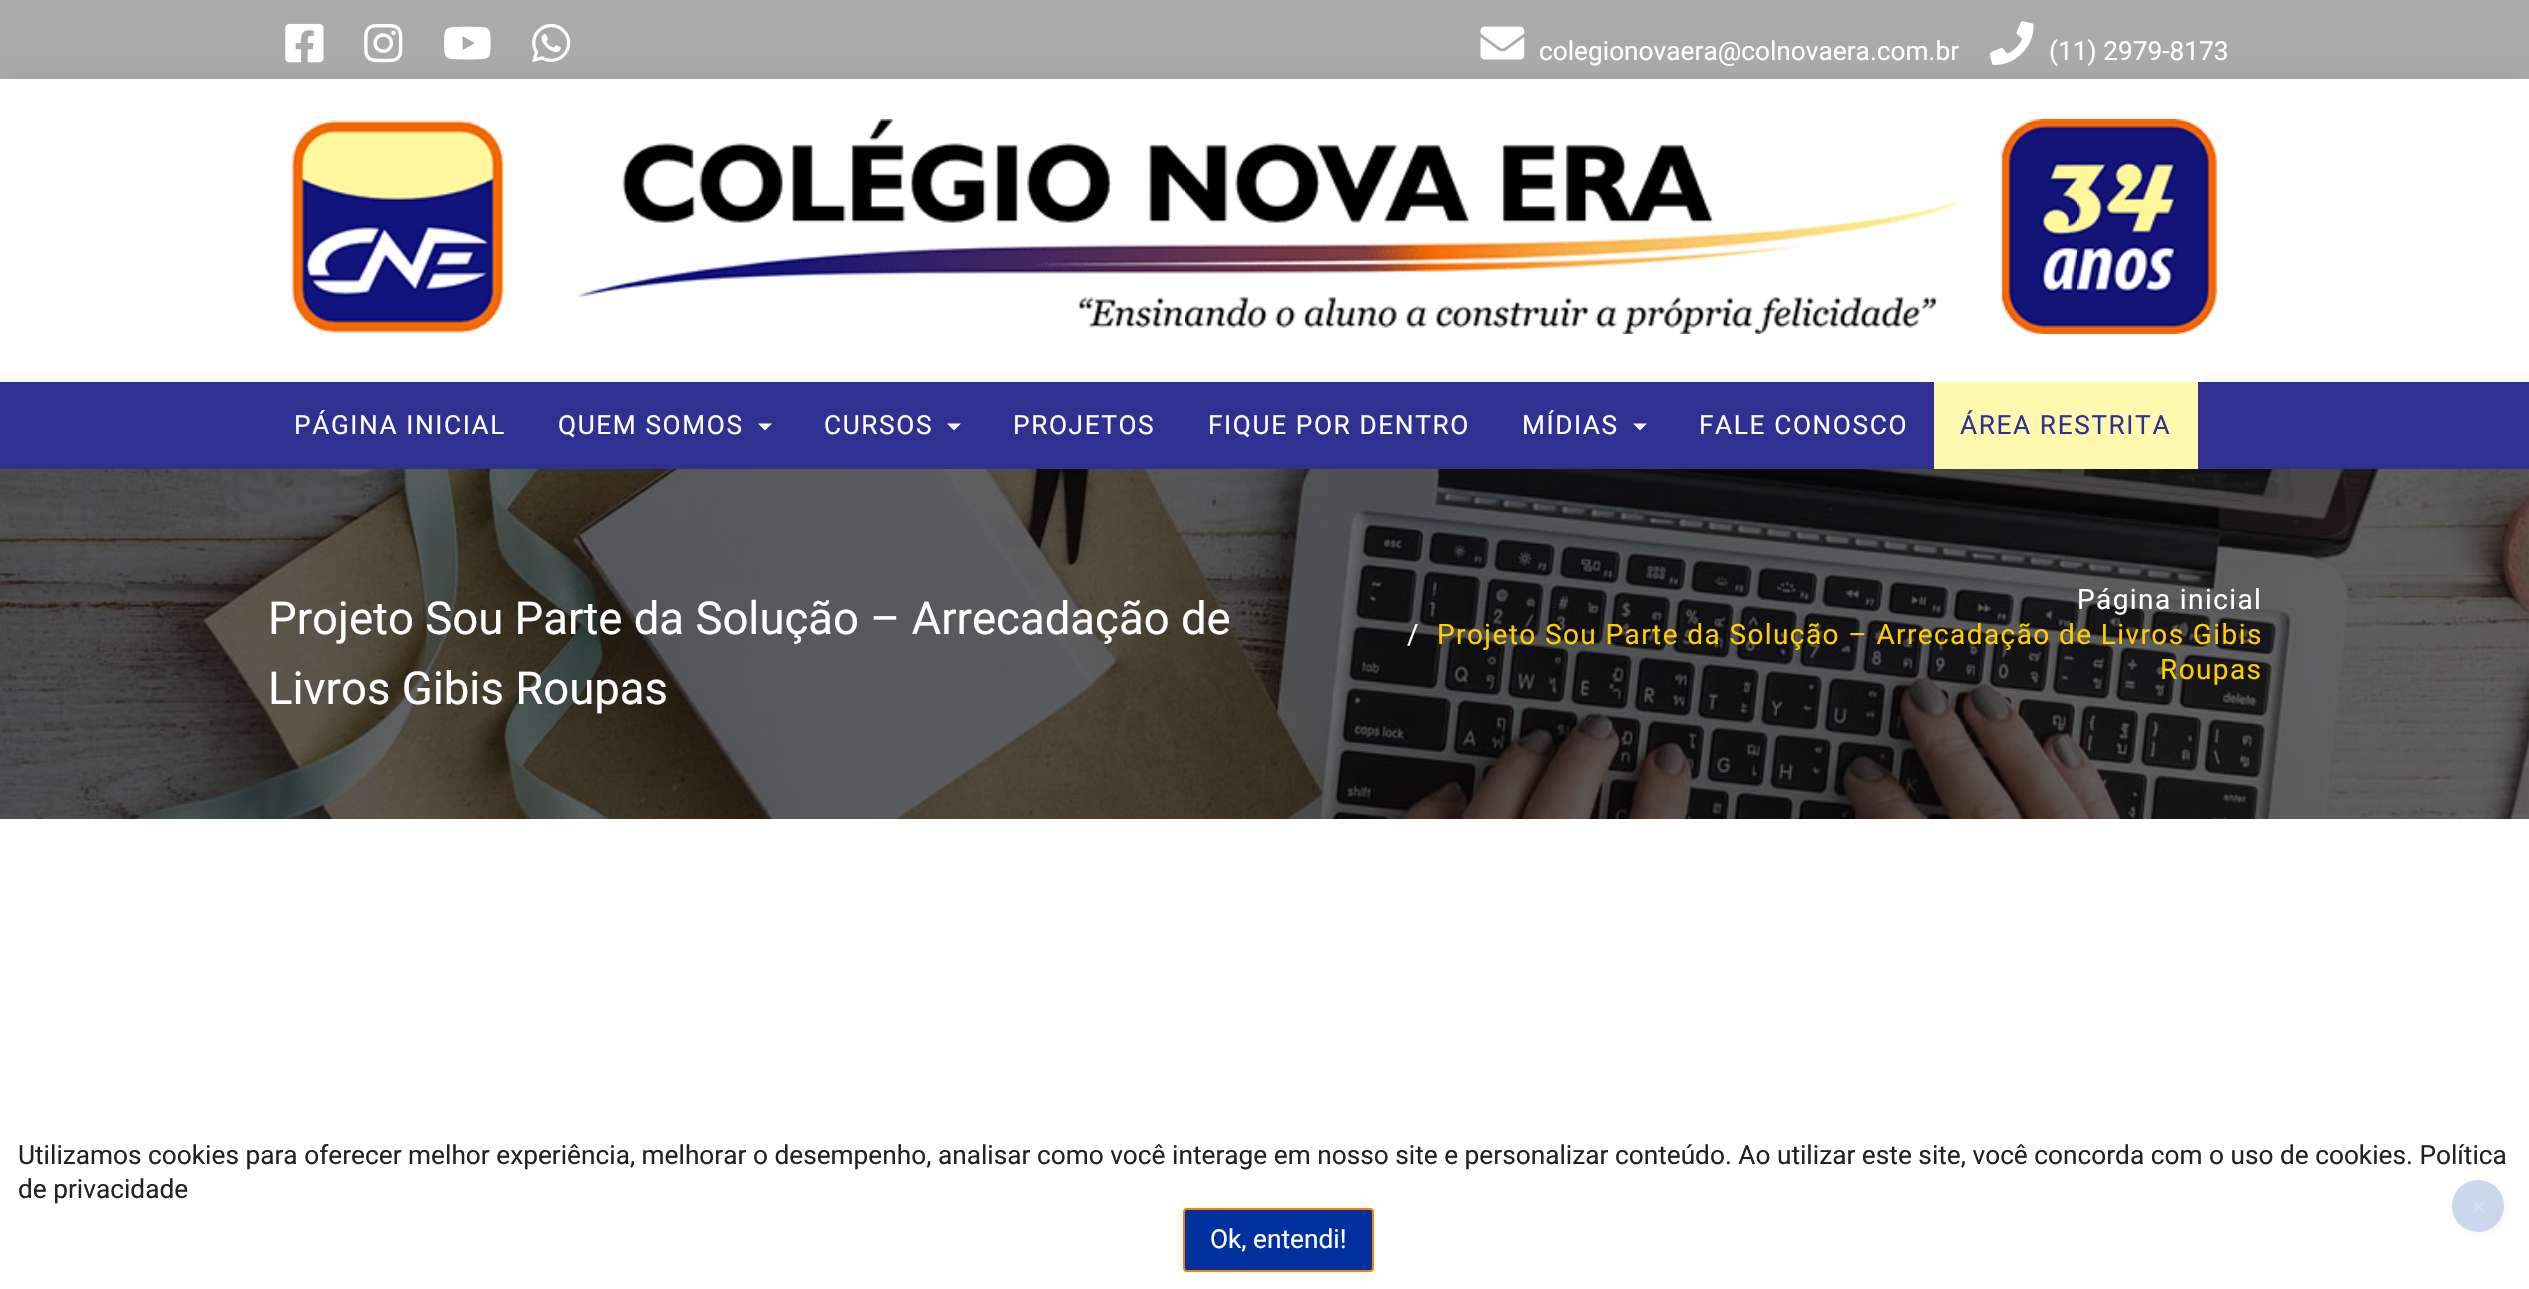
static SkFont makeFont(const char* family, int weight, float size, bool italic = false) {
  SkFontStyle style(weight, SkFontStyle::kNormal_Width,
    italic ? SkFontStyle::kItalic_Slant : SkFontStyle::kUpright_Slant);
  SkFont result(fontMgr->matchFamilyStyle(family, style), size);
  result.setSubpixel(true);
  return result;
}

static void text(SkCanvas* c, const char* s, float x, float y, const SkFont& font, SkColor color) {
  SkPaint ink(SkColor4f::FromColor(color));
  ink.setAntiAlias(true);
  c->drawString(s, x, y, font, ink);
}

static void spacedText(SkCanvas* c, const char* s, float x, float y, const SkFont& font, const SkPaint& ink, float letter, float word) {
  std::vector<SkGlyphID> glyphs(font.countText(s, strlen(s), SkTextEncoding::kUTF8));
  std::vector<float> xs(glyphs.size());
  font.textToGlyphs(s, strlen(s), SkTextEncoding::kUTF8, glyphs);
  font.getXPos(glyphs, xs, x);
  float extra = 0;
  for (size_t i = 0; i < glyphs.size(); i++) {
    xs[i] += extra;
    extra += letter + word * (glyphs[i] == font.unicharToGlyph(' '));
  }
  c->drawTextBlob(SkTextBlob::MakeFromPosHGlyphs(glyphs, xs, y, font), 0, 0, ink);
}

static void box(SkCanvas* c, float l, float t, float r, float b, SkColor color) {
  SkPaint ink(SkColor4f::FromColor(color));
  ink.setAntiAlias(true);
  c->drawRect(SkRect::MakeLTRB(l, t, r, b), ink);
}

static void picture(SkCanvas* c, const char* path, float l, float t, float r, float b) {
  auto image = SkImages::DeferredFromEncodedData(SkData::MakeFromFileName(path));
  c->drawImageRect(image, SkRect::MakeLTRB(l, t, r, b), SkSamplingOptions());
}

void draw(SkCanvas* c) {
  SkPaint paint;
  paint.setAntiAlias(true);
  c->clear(0xffffffff);
  box(c, 0, 0, 2529, 79, 0xffaaaaaa);
  c->save();
  c->clipPath(SkPathBuilder(SkPathFillType::kEvenOdd).moveTo(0, 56).lineTo(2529, 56).lineTo(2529, 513).lineTo(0, 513).close().moveTo(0, 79).lineTo(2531, 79).lineTo(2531, 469).lineTo(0, 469).close().detach(), true);
  paint.setColor(0x2e000000);
  paint.setMaskFilter(SkMaskFilter::MakeBlur(kNormal_SkBlurStyle, 10.5f));
  c->drawRect(SkRect::MakeLTRB(0, 89, 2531, 480), paint);
  paint.setMaskFilter(nullptr);
  c->restore();
  picture(c, "img_01.png", 285, 23, 324, 63);
  picture(c, "img_02.png", 364, 23, 403, 63);
  picture(c, "img_03.png", 444, 26, 491, 60);
  picture(c, "img_04.png", 532, 24, 571, 63);
  picture(c, "img_05.png", 1480, 26, 1525, 60);
  SkFont face1 = makeFont("Roboto", 400, 26.25f);
  text(c, "colegionovaera@colnovaera.com.br", 1539, 60, face1, 0xffffffff);
  picture(c, "img_06.png", 1989, 21, 2034, 65);
  text(c, "(11) 2979-8173", 2049, 60, face1, 0xffffffff);
  picture(c, "img_07.png", 291, 119, 2217, 334);
  box(c, 0, 382, 2529, 469, 0xff2e3092);
  paint.setColor(0xffffffff);
  spacedText(c, "PÁGINA INICIAL", 294, 434, face1, paint, 1.6f, 0);
  spacedText(c, "QUEM SOMOS", 558, 434, face1, paint, 1.6f, 0);
  c->drawPath(SkPathBuilder().moveTo(758, 423.5f).lineTo(772, 423.5f).lineTo(765, 430.5f).close().detach(), paint);
  spacedText(c, "CURSOS", 824, 434, face1, paint, 1.6f, 0);
  c->drawPath(SkPathBuilder().moveTo(947, 423.5f).lineTo(961, 423.5f).lineTo(954, 430.5f).close().detach(), paint);
  spacedText(c, "PROJETOS", 1013, 434, face1, paint, 1.6f, 0);
  spacedText(c, "FIQUE POR DENTRO", 1208, 434, face1, paint, 1.6f, 0);
  spacedText(c, "MÍDIAS", 1522, 434, face1, paint, 1.6f, 0);
  c->drawPath(SkPathBuilder().moveTo(1633, 423.5f).lineTo(1647, 423.5f).lineTo(1640, 430.5f).close().detach(), paint);
  spacedText(c, "FALE CONOSCO", 1699, 434, face1, paint, 1.6f, 0);
  box(c, 1934, 382, 2198, 469, 0xfffff8af);
  paint.setColor(0xff2e3092);
  spacedText(c, "ÁREA RESTRITA", 1960, 434, face1, paint, 1.6f, 0);
  picture(c, "img_08.png", 0, 469, 2529, 819);
  SkFont face2 = makeFont("Roboto", 400, 45.5f);
  text(c, "Projeto Sou Parte da Solução – Arrecadação de", 268, 634, face2, 0xffffffff);
  text(c, "Livros Gibis Roupas", 268, 704, face2, 0xffffffff);
  SkFont face3 = makeFont("Roboto", 400, 28);
  paint.setColor(0xffffffff);
  spacedText(c, "Página inicial", 2077, 609, face3, paint, 1.4f, 0);
  spacedText(c, "/", 1407, 644, face3, paint, 1.4f, 0);
  paint.setColor(0xffffcd00);
  spacedText(c, "Projeto Sou Parte da Solução – Arrecadação de Livros Gibis", 1437, 644, face3, paint, 1.4f, 0);
  spacedText(c, "Roupas", 2160, 679, face3, paint, 1.4f, 0);
  text(c, "Utilizamos cookies para oferecer melhor experiência, melhorar o desempenho, analisar como você interage em nosso site e personalizar conteúdo. Ao utilizar este site, você concorda com o uso de cookies. Política", 18, 1164, face1, 0xff222222);
  text(c, "de privacidade", 18, 1198, face1, 0xff222222);
  paint.setColor(0xff00309e);
  c->drawRoundRect(SkRect::MakeLTRB(1184, 1209, 1373, 1271), 3, 3, paint);
  paint.setStyle(SkPaint::kStroke_Style);
  paint.setStrokeWidth(2);
  paint.setColor(0xffff7e00);
  c->drawRoundRect(SkRect::MakeLTRB(1184, 1209, 1373, 1271), 3, 3, paint);
  text(c, "Ok, entendi!", 1210, 1248, face1, 0xffffffff);
  paint.setStyle(SkPaint::kFill_Style);
  paint.setColor(0x33cccccc);
  paint.setMaskFilter(SkMaskFilter::MakeBlur(kNormal_SkBlurStyle, 3.5f));
  c->drawRoundRect(SkRect::MakeLTRB(2452, 1181, 2504, 1234), 26, 26, paint);
  paint.setMaskFilter(nullptr);
  paint.setColor(0xffccd6ec);
  c->drawCircle(2478, 1206, 26, paint);
  picture(c, "img_09.png", 2473, 1200, 2485, 1213);
}
